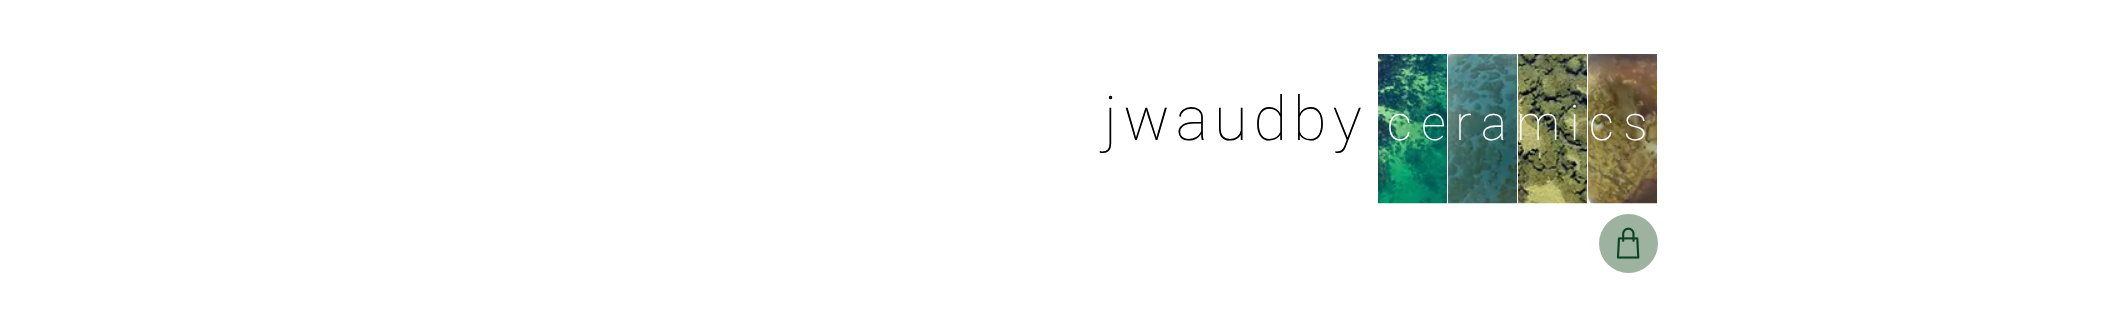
static SkFont makeFont(const char* family, int weight, float size, bool italic = false) {
  SkFontStyle style(weight, SkFontStyle::kNormal_Width,
    italic ? SkFontStyle::kItalic_Slant : SkFontStyle::kUpright_Slant);
  SkFont result(fontMgr->matchFamilyStyle(family, style), size);
  result.setSubpixel(true);
  return result;
}

static void spacedText(SkCanvas* c, const char* s, float x, float y, const SkFont& font, const SkPaint& ink, float letter, float word) {
  std::vector<SkGlyphID> glyphs(font.countText(s, strlen(s), SkTextEncoding::kUTF8));
  std::vector<float> xs(glyphs.size());
  font.textToGlyphs(s, strlen(s), SkTextEncoding::kUTF8, glyphs);
  font.getXPos(glyphs, xs, x);
  float extra = 0;
  for (size_t i = 0; i < glyphs.size(); i++) {
    xs[i] += extra;
    extra += letter + word * (glyphs[i] == font.unicharToGlyph(' '));
  }
  c->drawTextBlob(SkTextBlob::MakeFromPosHGlyphs(glyphs, xs, y, font), 0, 0, ink);
}

static void picture(SkCanvas* c, const char* path, float l, float t, float r, float b) {
  auto image = SkImages::DeferredFromEncodedData(SkData::MakeFromFileName(path));
  c->drawImageRect(image, SkRect::MakeLTRB(l, t, r, b), SkSamplingOptions());
}

void draw(SkCanvas* c) {
  SkPaint paint;
  paint.setAntiAlias(true);
  c->clear(0xffffffff);
  picture(c, "img_01.png", 1378, 54, 1448, 204);
  picture(c, "img_02.png", 1448, 54, 1518, 204);
  picture(c, "img_03.png", 1518, 54, 1588, 204);
  picture(c, "img_04.png", 1588, 54, 1658, 204);
  SkFont face1 = makeFont("Roboto", 100, 61.25f);
  paint.setColor(0xff000000);
  spacedText(c, "jwaudby", 1104, 140, face1, paint, 6, 0);
  SkFont face2 = makeFont("Roboto", 100, 48.75f);
  paint.setColor(0xffffffff);
  spacedText(c, "ceramics", 1387, 140, face2, paint, 9.5f, 0);
  paint.setColor(0xff9db39f);
  c->drawCircle(1628.5f, 243.5f, 29.5f, paint);
  picture(c, "img_05.png", 1616, 227, 1640, 259);
}
